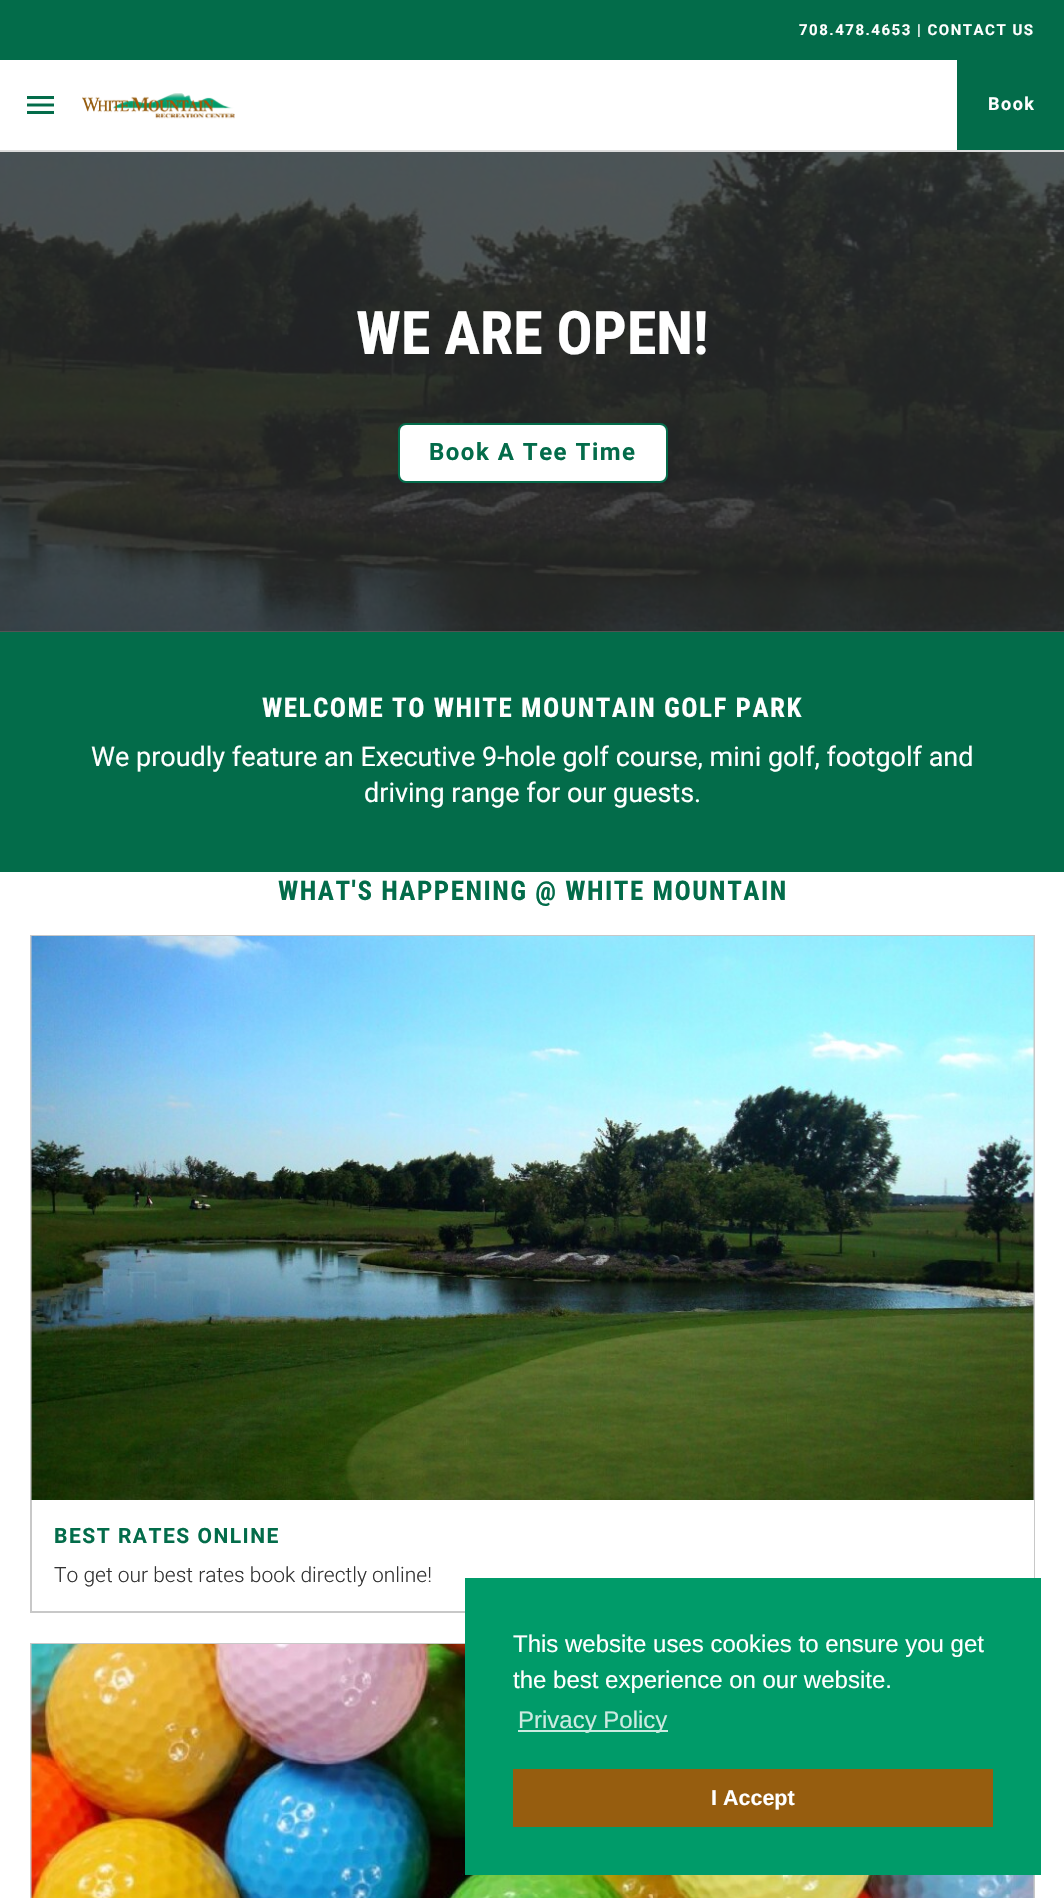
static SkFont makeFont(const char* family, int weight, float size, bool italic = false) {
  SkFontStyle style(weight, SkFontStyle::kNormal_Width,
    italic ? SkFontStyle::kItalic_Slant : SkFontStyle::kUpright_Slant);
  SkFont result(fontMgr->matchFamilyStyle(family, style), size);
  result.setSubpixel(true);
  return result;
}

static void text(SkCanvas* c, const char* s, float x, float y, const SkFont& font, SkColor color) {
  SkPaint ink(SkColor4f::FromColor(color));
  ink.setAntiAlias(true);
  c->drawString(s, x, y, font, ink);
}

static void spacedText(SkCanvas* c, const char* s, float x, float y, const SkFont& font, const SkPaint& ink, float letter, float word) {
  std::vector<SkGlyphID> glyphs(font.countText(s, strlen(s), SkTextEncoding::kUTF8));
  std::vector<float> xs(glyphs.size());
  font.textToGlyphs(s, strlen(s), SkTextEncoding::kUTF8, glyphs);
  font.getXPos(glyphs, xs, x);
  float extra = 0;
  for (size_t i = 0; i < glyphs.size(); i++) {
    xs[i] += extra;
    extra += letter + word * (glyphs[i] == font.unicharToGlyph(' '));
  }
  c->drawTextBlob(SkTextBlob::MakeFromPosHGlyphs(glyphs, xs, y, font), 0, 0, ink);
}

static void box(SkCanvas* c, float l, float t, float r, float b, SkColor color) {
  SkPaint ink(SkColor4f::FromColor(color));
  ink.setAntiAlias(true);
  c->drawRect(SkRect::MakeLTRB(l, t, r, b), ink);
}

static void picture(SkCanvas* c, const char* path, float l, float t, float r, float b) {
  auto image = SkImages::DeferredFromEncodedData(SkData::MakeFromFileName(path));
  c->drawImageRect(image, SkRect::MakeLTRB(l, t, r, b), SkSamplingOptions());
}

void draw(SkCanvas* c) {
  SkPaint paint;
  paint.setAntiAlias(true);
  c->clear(0xffffffff);
  box(c, 0, 631, 1064, 632, 0xff575757);
  box(c, 0, 0, 1064, 60, 0xff036c4a);
  SkFont face1 = makeFont("Roboto", 700, 15);
  paint.setColor(0xffffffff);
  spacedText(c, "708.478.4653 | CONTACT US", 799, 35, face1, paint, 1.5f, 0);
  box(c, 0, 150, 1064, 152, 0xffdcdcdc);
  picture(c, "img_01.png", 27, 96, 54, 114);
  picture(c, "img_02.png", 82, 93, 235, 119);
  box(c, 957, 60, 1064, 150, 0xff036c4a);
  SkFont face2 = makeFont("Roboto", 700, 18);
  spacedText(c, "Book", 988, 110, face2, paint, 1.5f, 0);
  picture(c, "img_03.png", 0, 152, 1064, 632);
  SkFont face3 = makeFont("Roboto Condensed", 700, 60);
  text(c, "WE ARE OPEN!", 356, 354, face3, 0xffffffff);
  c->drawRoundRect(SkRect::MakeLTRB(399, 424, 667, 482), 7, 7, paint);
  paint.setStyle(SkPaint::kStroke_Style);
  paint.setStrokeWidth(2);
  paint.setColor(0xff036c4a);
  c->drawRoundRect(SkRect::MakeLTRB(399, 424, 667, 482), 7, 7, paint);
  SkFont face4 = makeFont("Roboto", 700, 24);
  paint.setStyle(SkPaint::kFill_Style);
  spacedText(c, "Book A Tee Time", 429, 460, face4, paint, 1.5f, 0);
  box(c, 0, 632, 1064, 872, 0xff036c4a);
  SkFont face5 = makeFont("Roboto Condensed", 700, 27);
  paint.setColor(0xffffffff);
  spacedText(c, "WELCOME TO WHITE MOUNTAIN GOLF PARK", 262, 717, face5, paint, 1.5f, 0);
  SkFont face6 = makeFont("Roboto", 400, 27);
  text(c, "We proudly feature an Executive 9-hole golf course, mini golf, footgolf and", 91, 766, face6, 0xffffffff);
  text(c, "driving range for our guests.", 364, 802, face6, 0xffffffff);
  paint.setColor(0xff036c4a);
  spacedText(c, "WHAT'S HAPPENING @ WHITE MOUNTAIN", 278, 900, face5, paint, 1.5f, 0);
  paint.setStyle(SkPaint::kStroke_Style);
  paint.setColor(0xffc8c8c8);
  c->drawRect(SkRect::MakeLTRB(31, 936, 1034, 1612), paint);
  picture(c, "img_04.png", 31, 936, 1034, 1500);
  box(c, 1033, 1500, 1034, 1611, 0xffffffff);
  SkFont face7 = makeFont("Roboto", 700, 21);
  paint.setStyle(SkPaint::kFill_Style);
  paint.setColor(0xff036c4a);
  spacedText(c, "BEST RATES ONLINE", 54, 1543, face7, paint, 1.5f, 0);
  SkFont face8 = makeFont("Roboto", 300, 21);
  text(c, "To get our best rates book directly online!", 54, 1582, face8, 0xff333333);
  paint.setStyle(SkPaint::kStroke_Style);
  paint.setColor(0xffc8c8c8);
  c->drawRect(SkRect::MakeLTRB(31, 1644, 1034, 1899), paint);
  picture(c, "img_05.png", 31, 1644, 1034, 1898);
  box(c, 465, 1578, 1041, 1875, 0xff009b69);
  SkFont face9 = makeFont("Liberation Sans", 400, 24);
  text(c, "This website uses cookies to ensure you get", 513, 1652, face9, 0xffffffff);
  text(c, "the best experience on our website.", 513, 1688, face9, 0xffffffff);
  box(c, 518, 1730, 668, 1732, 0xffccebe1);
  text(c, "Privacy Policy", 518, 1728, face9, 0xffccebe1);
  box(c, 513, 1769, 993, 1827, 0xff965d0f);
  SkFont face10 = makeFont("Liberation Sans", 700, 21.5f);
  text(c, "I Accept", 711, 1805, face10, 0xffffffff);
}
